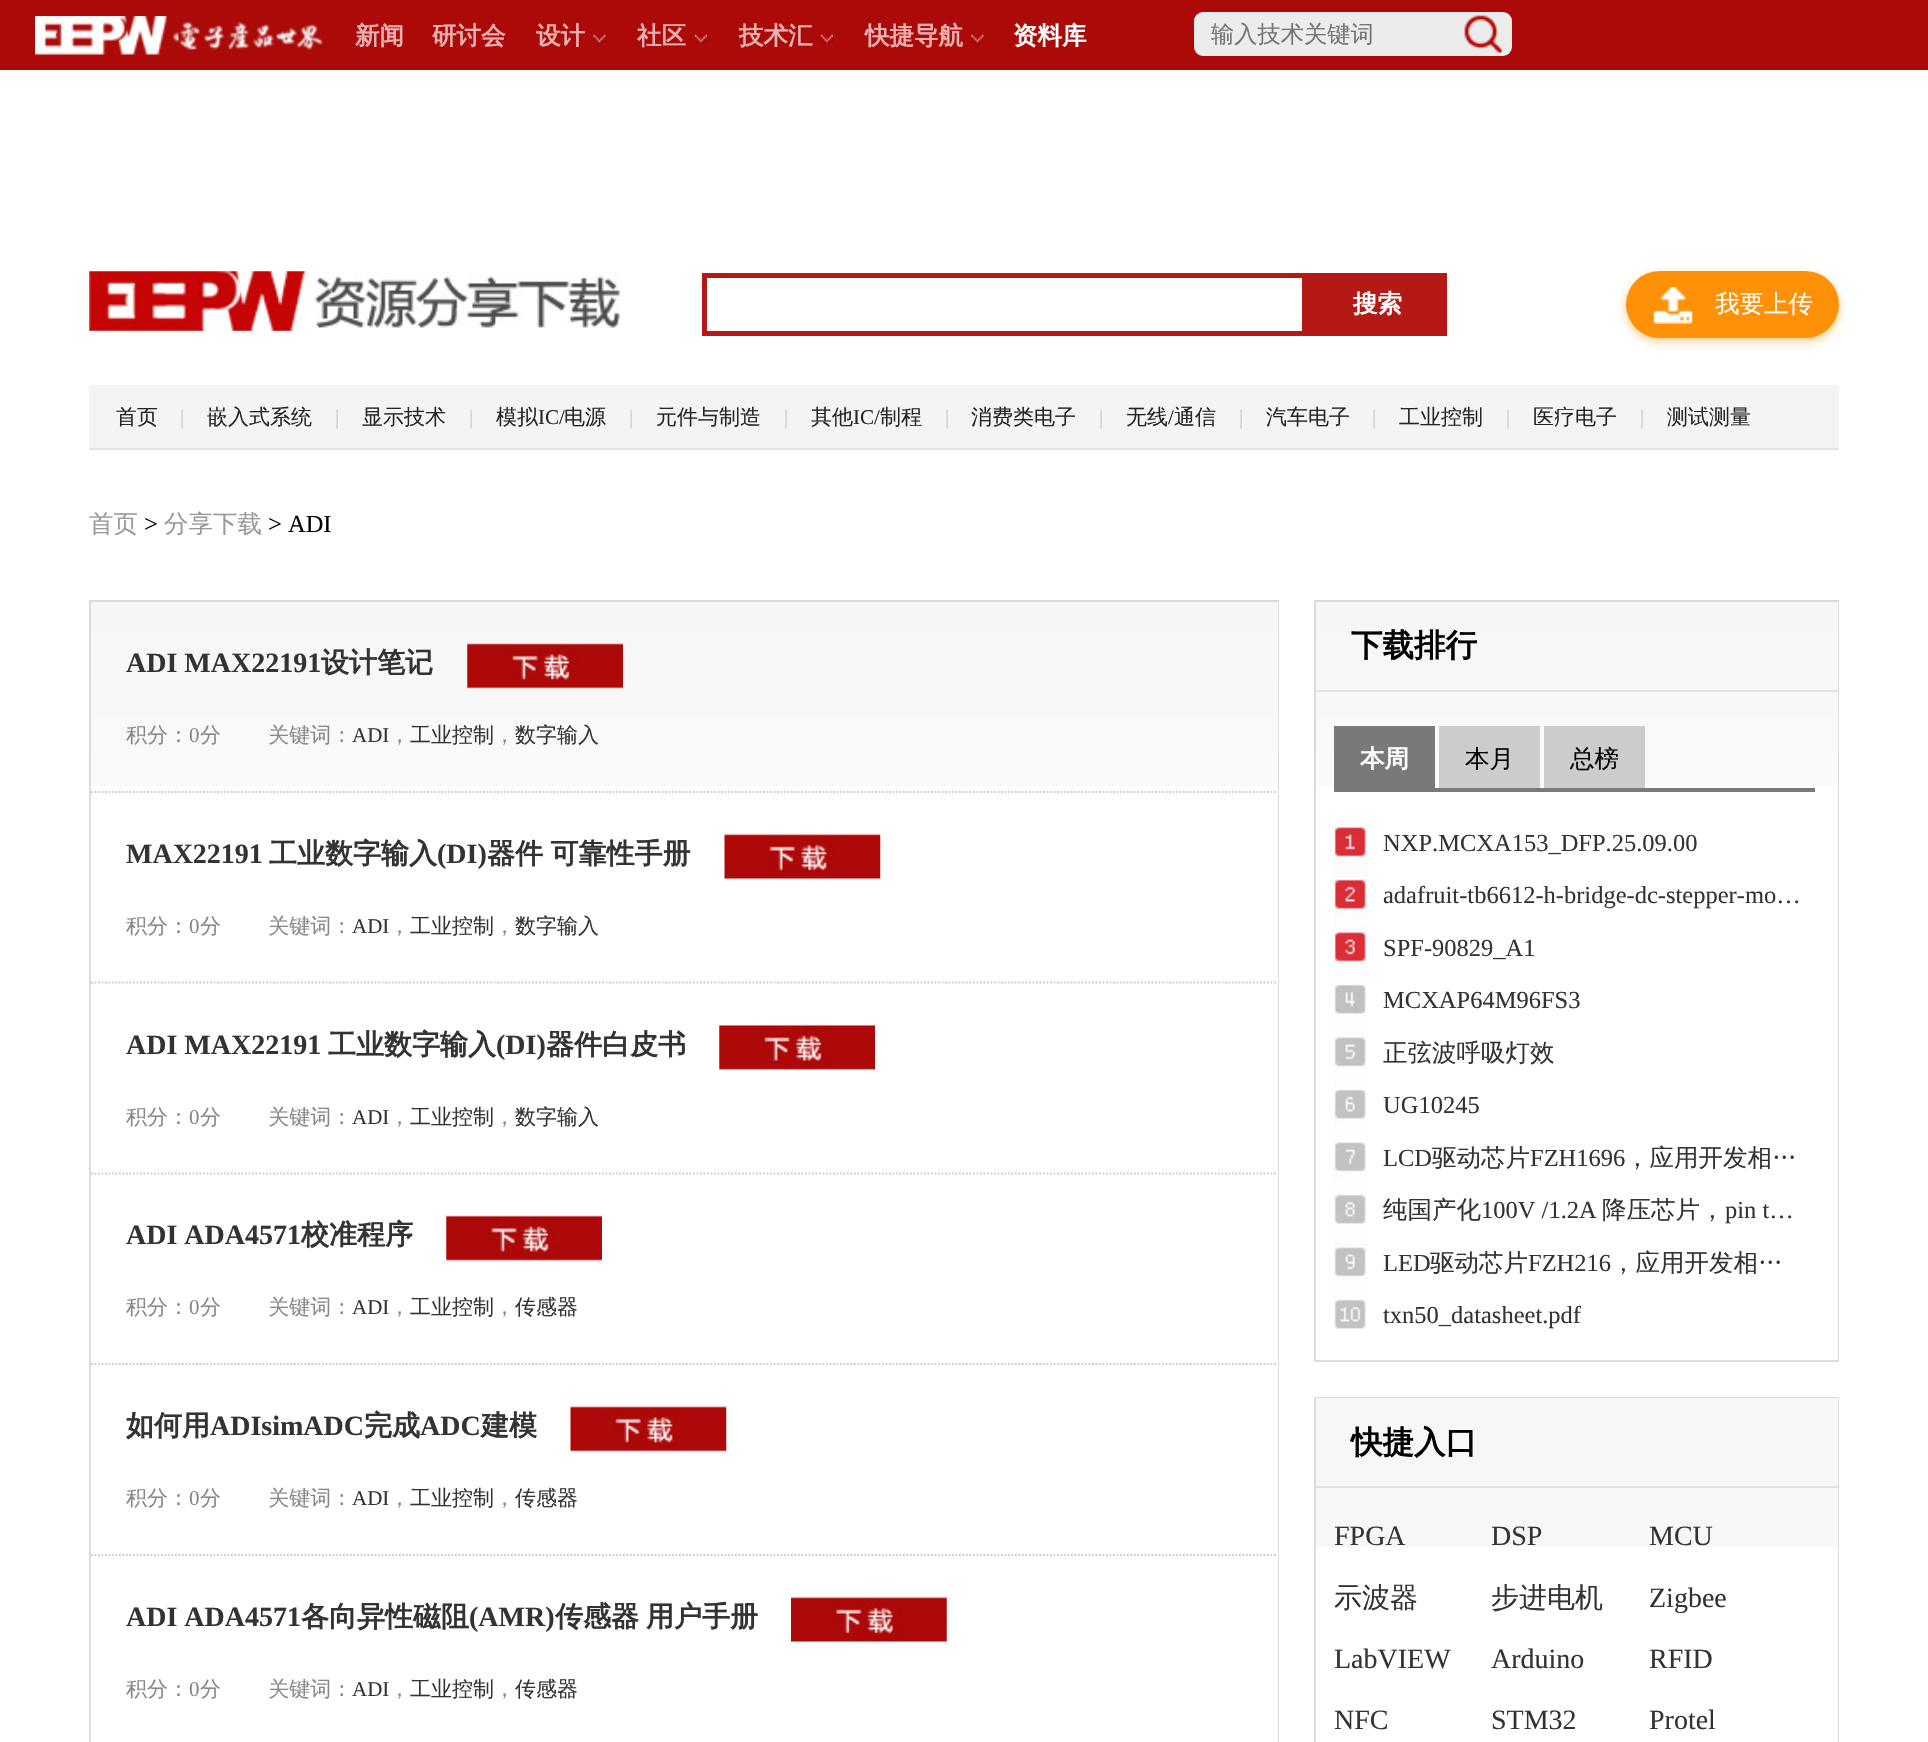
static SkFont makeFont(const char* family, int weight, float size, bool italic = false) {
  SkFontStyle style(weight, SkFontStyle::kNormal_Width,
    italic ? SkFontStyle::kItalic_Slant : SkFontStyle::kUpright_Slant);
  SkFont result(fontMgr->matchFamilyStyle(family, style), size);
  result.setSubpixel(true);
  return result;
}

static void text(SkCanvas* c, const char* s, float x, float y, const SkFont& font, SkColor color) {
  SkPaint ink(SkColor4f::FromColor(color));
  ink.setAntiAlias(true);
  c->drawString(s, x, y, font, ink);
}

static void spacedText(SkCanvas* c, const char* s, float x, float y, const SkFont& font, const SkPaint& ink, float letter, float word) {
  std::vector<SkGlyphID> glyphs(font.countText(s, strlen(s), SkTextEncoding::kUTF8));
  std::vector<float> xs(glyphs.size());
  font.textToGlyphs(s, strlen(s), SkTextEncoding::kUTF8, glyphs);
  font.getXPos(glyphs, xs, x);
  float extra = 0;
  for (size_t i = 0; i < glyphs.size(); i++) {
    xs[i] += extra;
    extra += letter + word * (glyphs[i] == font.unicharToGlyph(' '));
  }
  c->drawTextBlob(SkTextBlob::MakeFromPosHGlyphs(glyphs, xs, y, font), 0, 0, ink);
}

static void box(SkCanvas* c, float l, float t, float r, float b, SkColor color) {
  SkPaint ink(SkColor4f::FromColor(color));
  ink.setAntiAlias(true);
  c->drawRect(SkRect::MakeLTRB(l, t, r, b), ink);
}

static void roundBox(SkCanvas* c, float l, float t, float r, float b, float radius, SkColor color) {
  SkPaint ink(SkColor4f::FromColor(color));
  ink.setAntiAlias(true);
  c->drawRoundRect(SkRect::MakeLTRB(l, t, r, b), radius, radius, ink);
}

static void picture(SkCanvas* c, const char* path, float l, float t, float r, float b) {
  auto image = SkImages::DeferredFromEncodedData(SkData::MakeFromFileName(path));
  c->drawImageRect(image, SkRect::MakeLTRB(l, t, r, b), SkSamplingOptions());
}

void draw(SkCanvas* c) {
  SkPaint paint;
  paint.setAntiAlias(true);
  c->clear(0xffffffff);
  box(c, 0, 0, 1928, 70, 0xffac0909);
  picture(c, "img_01.png", 35, 16, 323, 55);
  SkFont face1 = makeFont("WenQuanYi Zen Hei", 700, 24.5f);
  text(c, "新闻", 355, 44, face1, 0xffe8b0b0);
  text(c, "研讨会", 432, 44, face1, 0xffe8b0b0);
  text(c, "设计", 536, 44, face1, 0xffe8b0b0);
  picture(c, "img_02.png", 593, 34, 606, 44);
  text(c, "社区", 637, 44, face1, 0xffe8b0b0);
  picture(c, "img_03.png", 694, 34, 707, 44);
  text(c, "技术汇", 739, 44, face1, 0xffe8b0b0);
  picture(c, "img_04.png", 820, 34, 833, 44);
  text(c, "快捷导航", 865, 44, face1, 0xffe8b0b0);
  picture(c, "img_02.png", 971, 34, 984, 44);
  text(c, "资料库", 1013, 44, face1, 0xffffffff);
  roundBox(c, 1194, 12, 1512, 56, 9, 0xffececec);
  box(c, 1202, 12, 1203, 56, 0xffececec);
  SkFont face2 = makeFont("WenQuanYi Zen Hei", 500, 23.25f);
  text(c, "输入技术关键词", 1211, 42, face2, 0xff757575);
  picture(c, "img_05.png", 1464, 15, 1502, 53);
  picture(c, "img_06.png", 89, 271, 620, 331);
  paint.setStyle(SkPaint::kStroke_Style);
  paint.setStrokeWidth(5);
  paint.setColor(0xffb41915);
  c->drawRect(SkRect::MakeLTRB(704.5f, 275.5f, 1304.5f, 333.5f), paint);
  box(c, 1307, 273, 1447, 336, 0xffb41915);
  text(c, "搜索", 1353, 312, face1, 0xffffffff);
  paint.setStyle(SkPaint::kFill_Style);
  paint.setColor(0x80ff9108);
  paint.setMaskFilter(SkMaskFilter::MakeBlur(kNormal_SkBlurStyle, 5));
  c->drawRoundRect(SkRect::MakeLTRB(1626, 275, 1839, 341), 33, 33, paint);
  paint.setMaskFilter(nullptr);
  roundBox(c, 1626, 271, 1839, 338, 33.5f, 0xffff9108);
  picture(c, "img_07.png", 1653, 287, 1693, 324);
  SkFont face3 = makeFont("WenQuanYi Zen Hei", 500, 24.5f);
  text(c, "我要上传", 1715, 312, face3, 0xffffffff);
  box(c, 89, 385, 1839, 448, 0xfff4f4f4);
  box(c, 89, 448, 1839, 450, 0xffe4e4e4);
  SkFont face4 = makeFont("WenQuanYi Zen Hei", 500, 21);
  text(c, "首页", 116, 424, face4, 0xff252525);
  SkFont face5 = makeFont("Liberation Serif", 400, 21);
  text(c, "|", 180, 424, face5, 0xffcccccc);
  text(c, "嵌入式系统", 207, 424, face4, 0xff252525);
  text(c, "|", 335, 424, face5, 0xffcccccc);
  text(c, "显示技术", 362, 424, face4, 0xff252525);
  text(c, "|", 469, 424, face5, 0xffcccccc);
  text(c, "模拟", 496, 424, face4, 0xff252525);
  text(c, "IC/", 538, 424, face5, 0xff252525);
  text(c, "电源", 564, 424, face4, 0xff252525);
  text(c, "|", 629, 424, face5, 0xffcccccc);
  text(c, "元件与制造", 656, 424, face4, 0xff252525);
  text(c, "|", 784, 424, face5, 0xffcccccc);
  text(c, "其他", 811, 424, face4, 0xff252525);
  text(c, "IC/", 853, 424, face5, 0xff252525);
  text(c, "制程", 880, 424, face4, 0xff252525);
  text(c, "|", 945, 424, face5, 0xffcccccc);
  text(c, "消费类电子", 971, 424, face4, 0xff252525);
  text(c, "|", 1099, 424, face5, 0xffcccccc);
  text(c, "无线", 1126, 424, face4, 0xff252525);
  text(c, "/", 1168, 424, face5, 0xff252525);
  text(c, "通信", 1174, 424, face4, 0xff252525);
  text(c, "|", 1239, 424, face5, 0xffcccccc);
  text(c, "汽车电子", 1266, 424, face4, 0xff252525);
  text(c, "|", 1372, 424, face5, 0xffcccccc);
  text(c, "工业控制", 1399, 424, face4, 0xff252525);
  text(c, "|", 1506, 424, face5, 0xffcccccc);
  text(c, "医疗电子", 1533, 424, face4, 0xff252525);
  text(c, "|", 1640, 424, face5, 0xffcccccc);
  text(c, "测试测量", 1667, 424, face4, 0xff252525);
  text(c, "首页", 89, 532, face3, 0xff999999);
  SkFont face6 = makeFont("Liberation Serif", 400, 24.5f);
  text(c, ">", 144, 532, face6, 0xff000000);
  text(c, "分享下载", 164, 532, face3, 0xff999999);
  text(c, "> ADI", 268, 532, face6, 0xff000000);
  box(c, 89, 600, 1279, 602, 0xffdbdbdb);
  box(c, 1278, 600, 1279, 1742, 0xffdbdbdb);
  box(c, 89, 600, 91, 1742, 0xffdbdbdb);
  picture(c, "img_08.png", 91, 602, 1278, 786);
  paint.setStyle(SkPaint::kStroke_Style);
  paint.setStrokeWidth(1.8f);
  paint.setColor(0xffcccccc);
  paint.setPathEffect(SkDashPathEffect::Make({{1.75f, 1.75f}}, 0));
  c->drawPath(SkPathBuilder().moveTo(91, 792).lineTo(1277.5f, 792).detach(), paint);
  paint.setPathEffect(nullptr);
  SkFont face7 = makeFont("Liberation Serif", 700, 28);
  text(c, "ADI MAX22191", 126, 672, face7, 0xff333333);
  SkFont face8 = makeFont("WenQuanYi Zen Hei", 700, 28);
  text(c, "设计笔记", 321, 672, face8, 0xff333333);
  picture(c, "img_09.png", 467, 643, 623, 689);
  text(c, "积分：", 126, 742, face4, 0xff888888);
  text(c, "0", 189, 742, face5, 0xff888888);
  paint.setStyle(SkPaint::kFill_Style);
  paint.setColor(0xff888888);
  spacedText(c, "分 　　关键词：", 200, 742, face4, paint, 0, -1);
  text(c, "ADI", 352, 742, face5, 0xff333333);
  text(c, "，", 389, 742, face4, 0xff888888);
  text(c, "工业控制", 410, 742, face4, 0xff333333);
  text(c, "，", 494, 742, face4, 0xff888888);
  text(c, "数字输入", 515, 742, face4, 0xff333333);
  paint.setStyle(SkPaint::kStroke_Style);
  paint.setColor(0xffcccccc);
  paint.setPathEffect(SkDashPathEffect::Make({{1.75f, 1.75f}}, 0));
  c->drawPath(SkPathBuilder().moveTo(91, 982.5f).lineTo(1277.5f, 982.5f).detach(), paint);
  paint.setPathEffect(nullptr);
  text(c, "MAX22191", 126, 863, face7, 0xff333333);
  text(c, "工业数字输入", 269, 863, face8, 0xff333333);
  text(c, "(DI)", 437, 863, face7, 0xff333333);
  paint.setStyle(SkPaint::kFill_Style);
  paint.setColor(0xff333333);
  spacedText(c, "器件 可靠性手册", 487, 863, face8, paint, 0, -1);
  picture(c, "img_10.png", 724, 833, 881, 880);
  text(c, "积分：", 126, 933, face4, 0xff888888);
  text(c, "0", 189, 933, face5, 0xff888888);
  paint.setColor(0xff888888);
  spacedText(c, "分 　　关键词：", 200, 933, face4, paint, 0, -1);
  text(c, "ADI", 352, 933, face5, 0xff333333);
  text(c, "，", 389, 933, face4, 0xff888888);
  text(c, "工业控制", 410, 933, face4, 0xff333333);
  text(c, "，", 494, 933, face4, 0xff888888);
  text(c, "数字输入", 515, 933, face4, 0xff333333);
  paint.setStyle(SkPaint::kStroke_Style);
  paint.setColor(0xffcccccc);
  paint.setPathEffect(SkDashPathEffect::Make({{1.75f, 1.75f}}, 0));
  c->drawPath(SkPathBuilder().moveTo(91, 1173.5f).lineTo(1277.5f, 1173.5f).detach(), paint);
  paint.setPathEffect(nullptr);
  text(c, "ADI MAX22191", 126, 1054, face7, 0xff333333);
  text(c, "工业数字输入", 328, 1054, face8, 0xff333333);
  text(c, "(DI)", 496, 1054, face7, 0xff333333);
  text(c, "器件白皮书", 546, 1054, face8, 0xff333333);
  picture(c, "img_11.png", 719, 1024, 875, 1071);
  text(c, "积分：", 126, 1124, face4, 0xff888888);
  text(c, "0", 189, 1124, face5, 0xff888888);
  paint.setStyle(SkPaint::kFill_Style);
  paint.setColor(0xff888888);
  spacedText(c, "分 　　关键词：", 200, 1124, face4, paint, 0, -1);
  text(c, "ADI", 352, 1124, face5, 0xff333333);
  text(c, "，", 389, 1124, face4, 0xff888888);
  text(c, "工业控制", 410, 1124, face4, 0xff333333);
  text(c, "，", 494, 1124, face4, 0xff888888);
  text(c, "数字输入", 515, 1124, face4, 0xff333333);
  paint.setStyle(SkPaint::kStroke_Style);
  paint.setColor(0xffcccccc);
  paint.setPathEffect(SkDashPathEffect::Make({{1.75f, 1.75f}}, 0));
  c->drawPath(SkPathBuilder().moveTo(91, 1364).lineTo(1277.5f, 1364).detach(), paint);
  paint.setPathEffect(nullptr);
  text(c, "ADI ADA4571", 126, 1244, face7, 0xff333333);
  text(c, "校准程序", 301, 1244, face8, 0xff333333);
  picture(c, "img_12.png", 446, 1214, 602, 1262);
  text(c, "积分：", 126, 1314, face4, 0xff888888);
  text(c, "0", 189, 1314, face5, 0xff888888);
  paint.setStyle(SkPaint::kFill_Style);
  paint.setColor(0xff888888);
  spacedText(c, "分 　　关键词：", 200, 1314, face4, paint, 0, -1);
  text(c, "ADI", 352, 1314, face5, 0xff333333);
  text(c, "，", 389, 1314, face4, 0xff888888);
  text(c, "工业控制", 410, 1314, face4, 0xff333333);
  text(c, "，", 494, 1314, face4, 0xff888888);
  text(c, "传感器", 515, 1314, face4, 0xff333333);
  paint.setStyle(SkPaint::kStroke_Style);
  paint.setColor(0xffcccccc);
  paint.setPathEffect(SkDashPathEffect::Make({{1.75f, 1.75f}}, 0));
  c->drawPath(SkPathBuilder().moveTo(91, 1555).lineTo(1277.5f, 1555).detach(), paint);
  paint.setPathEffect(nullptr);
  text(c, "如何用", 126, 1435, face8, 0xff333333);
  text(c, "ADIsimADC", 210, 1435, face7, 0xff333333);
  text(c, "完成", 364, 1435, face8, 0xff333333);
  text(c, "ADC", 420, 1435, face7, 0xff333333);
  text(c, "建模", 481, 1435, face8, 0xff333333);
  picture(c, "img_13.png", 570, 1405, 727, 1453);
  text(c, "积分：", 126, 1505, face4, 0xff888888);
  text(c, "0", 189, 1505, face5, 0xff888888);
  paint.setStyle(SkPaint::kFill_Style);
  paint.setColor(0xff888888);
  spacedText(c, "分 　　关键词：", 200, 1505, face4, paint, 0, -1);
  text(c, "ADI", 352, 1505, face5, 0xff333333);
  text(c, "，", 389, 1505, face4, 0xff888888);
  text(c, "工业控制", 410, 1505, face4, 0xff333333);
  text(c, "，", 494, 1505, face4, 0xff888888);
  text(c, "传感器", 515, 1505, face4, 0xff333333);
  text(c, "ADI ADA4571", 126, 1626, face7, 0xff333333);
  text(c, "各向异性磁阻", 301, 1626, face8, 0xff333333);
  text(c, "(AMR)", 469, 1626, face7, 0xff333333);
  text(c, "传感器", 555, 1626, face8, 0xff333333);
  text(c, "用户手册", 646, 1626, face8, 0xff333333);
  picture(c, "img_14.png", 791, 1596, 947, 1643);
  text(c, "积分：", 126, 1696, face4, 0xff888888);
  text(c, "0", 189, 1696, face5, 0xff888888);
  spacedText(c, "分 　　关键词：", 200, 1696, face4, paint, 0, -1);
  text(c, "ADI", 352, 1696, face5, 0xff333333);
  text(c, "，", 389, 1696, face4, 0xff888888);
  text(c, "工业控制", 410, 1696, face4, 0xff333333);
  text(c, "，", 494, 1696, face4, 0xff888888);
  text(c, "传感器", 515, 1696, face4, 0xff333333);
  box(c, 1314, 600, 1839, 602, 0xffdbdbdb);
  box(c, 1838, 600, 1839, 1362, 0xffdbdbdb);
  box(c, 1314, 600, 1316, 1362, 0xffdbdbdb);
  picture(c, "img_15.png", 1316, 602, 1838, 786);
  box(c, 1316, 1360, 1838, 1362, 0xffdbdbdb);
  box(c, 1316, 690, 1838, 692, 0xffe2e2e2);
  SkFont face9 = makeFont("WenQuanYi Zen Hei", 700, 31.5f);
  text(c, "下载排行", 1351, 656, face9, 0xff000000);
  box(c, 1334, 788, 1815, 792, 0xff797979);
  box(c, 1334, 726, 1435, 788, 0xff797979);
  text(c, "本周", 1360, 767, face1, 0xffffffff);
  box(c, 1439, 726, 1540, 788, 0xffcccccc);
  text(c, "本月", 1465, 767, face3, 0xff000000);
  box(c, 1544, 726, 1645, 788, 0xffcccccc);
  text(c, "总榜", 1570, 767, face3, 0xff000000);
  picture(c, "img_16.png", 1333, 819, 1369, 1329);
  text(c, "NXP.MCXA153_DFP.25.09.00", 1383, 851, face6, 0xff333333);
  text(c, "adafruit-tb6612-h-bridge-dc-stepper-mo…", 1383, 903, face6, 0xff333333);
  text(c, "SPF-90829_A1", 1383, 956, face6, 0xff333333);
  text(c, "MCXAP64M96FS3", 1383, 1008, face6, 0xff333333);
  text(c, "正弦波呼吸灯效", 1383, 1061, face3, 0xff333333);
  text(c, "UG10245", 1383, 1113, face6, 0xff333333);
  text(c, "LCD", 1383, 1166, face6, 0xff333333);
  text(c, "驱动芯片", 1432, 1166, face3, 0xff333333);
  text(c, "FZH1696", 1530, 1166, face6, 0xff333333);
  text(c, "，应用开发相…", 1625, 1166, face3, 0xff333333);
  text(c, "纯国产化", 1383, 1218, face3, 0xff333333);
  text(c, "100V /1.2A", 1481, 1218, face6, 0xff333333);
  text(c, "降压芯片，", 1602, 1218, face3, 0xff333333);
  text(c, "pin t…", 1725, 1218, face6, 0xff333333);
  text(c, "LED", 1383, 1271, face6, 0xff333333);
  text(c, "驱动芯片", 1430, 1271, face3, 0xff333333);
  text(c, "FZH216", 1528, 1271, face6, 0xff333333);
  text(c, "，应用开发相…", 1611, 1271, face3, 0xff333333);
  text(c, "txn50_datasheet.pdf", 1383, 1323, face6, 0xff333333);
  box(c, 1314, 1397, 1839, 1398, 0xffdbdbdb);
  box(c, 1838, 1397, 1839, 1742, 0xffdbdbdb);
  box(c, 1314, 1397, 1316, 1742, 0xffdbdbdb);
  box(c, 1316, 1398, 1838, 1547, 0xfff7f7f7);
  box(c, 1316, 1486, 1838, 1488, 0xffe2e2e2);
  text(c, "快捷入口", 1351, 1453, face9, 0xff000000);
  SkFont face10 = makeFont("Liberation Serif", 400, 28);
  text(c, "FPGA", 1334, 1545, face10, 0xff333333);
  text(c, "DSP", 1491, 1545, face10, 0xff333333);
  text(c, "MCU", 1649, 1545, face10, 0xff333333);
  SkFont face11 = makeFont("WenQuanYi Zen Hei", 500, 28);
  text(c, "示波器", 1334, 1607, face11, 0xff333333);
  text(c, "步进电机", 1491, 1607, face11, 0xff333333);
  text(c, "Zigbee", 1649, 1607, face10, 0xff333333);
  text(c, "LabVIEW", 1334, 1668, face10, 0xff333333);
  text(c, "Arduino", 1491, 1668, face10, 0xff333333);
  text(c, "RFID", 1649, 1668, face10, 0xff333333);
  text(c, "NFC", 1334, 1729, face10, 0xff333333);
  text(c, "STM32", 1491, 1729, face10, 0xff333333);
  text(c, "Protel", 1649, 1729, face10, 0xff333333);
}
